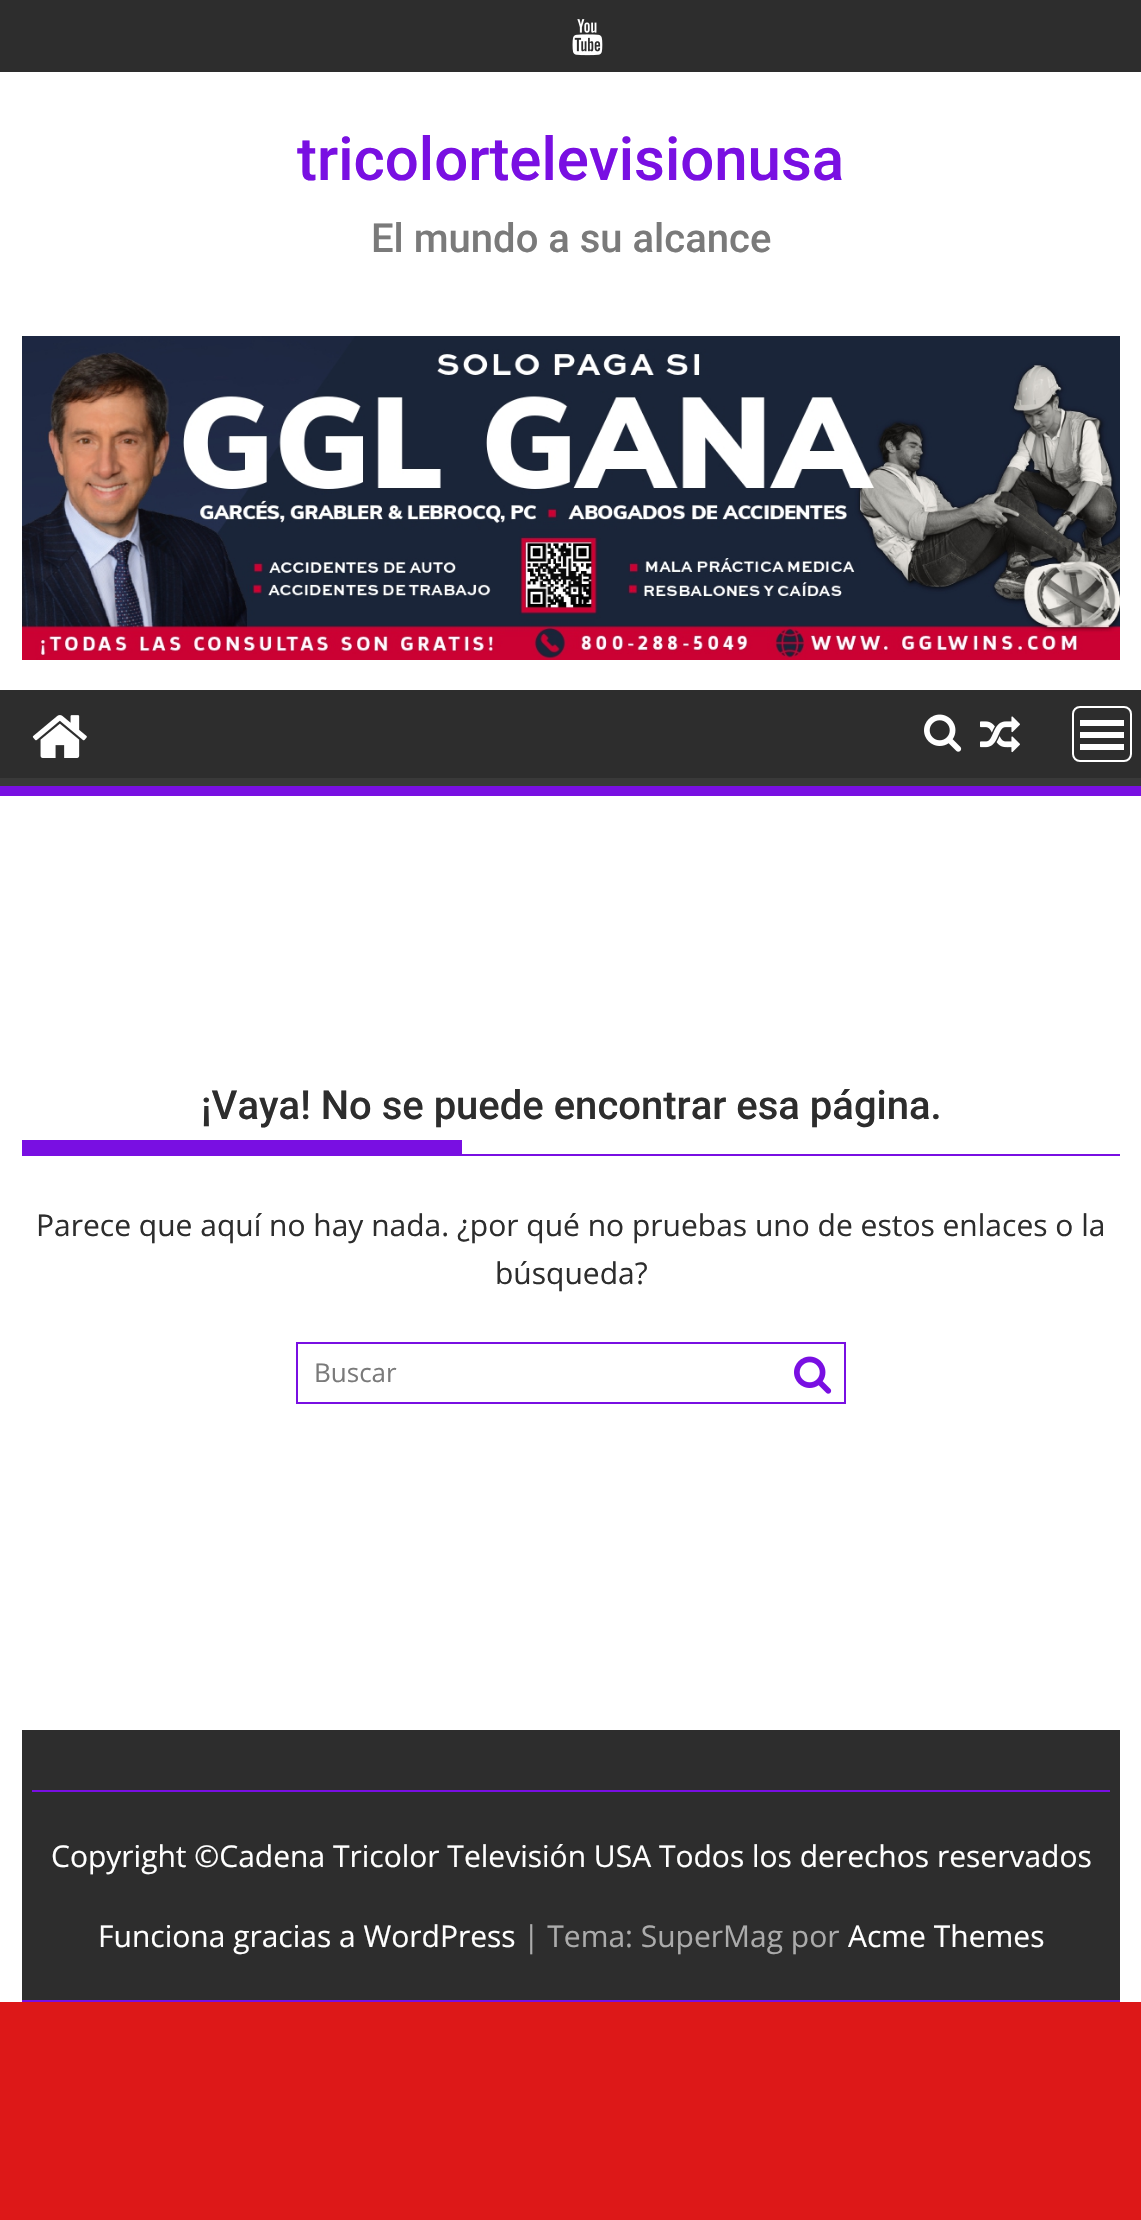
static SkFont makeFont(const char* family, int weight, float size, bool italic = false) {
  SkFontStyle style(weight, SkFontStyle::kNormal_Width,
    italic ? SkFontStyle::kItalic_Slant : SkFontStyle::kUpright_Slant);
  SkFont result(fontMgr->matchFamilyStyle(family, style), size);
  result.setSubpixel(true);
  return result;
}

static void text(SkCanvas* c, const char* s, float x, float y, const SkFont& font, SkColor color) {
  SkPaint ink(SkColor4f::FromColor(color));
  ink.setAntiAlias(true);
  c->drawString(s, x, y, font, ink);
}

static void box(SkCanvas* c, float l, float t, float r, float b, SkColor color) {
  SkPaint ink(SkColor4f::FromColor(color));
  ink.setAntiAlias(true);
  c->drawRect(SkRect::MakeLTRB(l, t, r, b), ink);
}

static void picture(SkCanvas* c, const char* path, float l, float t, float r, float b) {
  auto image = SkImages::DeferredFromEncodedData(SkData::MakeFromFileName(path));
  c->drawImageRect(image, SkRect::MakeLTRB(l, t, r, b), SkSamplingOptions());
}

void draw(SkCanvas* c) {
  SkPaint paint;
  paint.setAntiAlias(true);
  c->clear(0xffdd1818);
  box(c, 0, 72, 1141, 2002, 0xffffffff);
  box(c, 0, 0, 1141, 72, 0xff2d2d2d);
  picture(c, "img_01.png", 572, 19, 603, 56);
  SkFont face1 = makeFont("Roboto", 500, 60);
  text(c, "tricolortelevisionusa", 297, 180, face1, 0xff790fe2);
  SkFont face2 = makeFont("Roboto", 500, 40);
  text(c, "El mundo a su alcance", 371, 252, face2, 0xff7a7a7a);
  picture(c, "img_02.png", 22, 336, 1120, 660);
  box(c, 0, 690, 1141, 778, 0xff2d2d2d);
  c->save();
  c->clipRect(SkRect::MakeLTRB(0, 690, 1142, 786));
  paint.setColor(0xff393939);
  c->drawPath(SkPathBuilder(SkPathFillType::kEvenOdd).moveTo(-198, 492).lineTo(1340, 492).lineTo(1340, 984).lineTo(-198, 984).close().moveTo(-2, 678).lineTo(1140, 678).cubicTo(1141, 678, 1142, 679, 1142, 680).lineTo(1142, 776).cubicTo(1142, 777, 1141, 778, 1140, 778).lineTo(-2, 778).cubicTo(-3, 778, -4, 777, -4, 776).lineTo(-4, 680).cubicTo(-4, 679, -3, 678, -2, 678).close().detach(), paint);
  c->restore();
  box(c, 0, 786, 1141, 796, 0xff790fe2);
  picture(c, "img_03.png", 32, 715, 87, 758);
  picture(c, "img_04.png", 924, 714, 962, 752);
  picture(c, "img_05.png", 980, 716, 1020, 753);
  paint.setStyle(SkPaint::kStroke_Style);
  paint.setStrokeWidth(2);
  paint.setColor(0xffffffff);
  c->drawRoundRect(SkRect::MakeLTRB(1073, 707, 1131, 761), 7, 7, paint);
  box(c, 1080, 744, 1124, 750, 0xffffffff);
  box(c, 1080, 732, 1124, 738, 0xffffffff);
  box(c, 1080, 720, 1124, 726, 0xffffffff);
  box(c, 22, 1154, 1120, 1156, 0xff790fe2);
  text(c, "¡Vaya! No se puede encontrar esa página.", 201, 1119, face2, 0xff2d2d2d);
  box(c, 22, 1140, 462, 1154, 0xff790fe2);
  SkFont face3 = makeFont("Open Sans", 400, 30);
  text(c, "Parece que aquí no hay nada. ¿por qué no pruebas uno de estos enlaces o la", 36, 1236, face3, 0xff2d2d2d);
  text(c, "búsqueda?", 495, 1284, face3, 0xff2d2d2d);
  paint.setColor(0xff790fe2);
  c->drawRect(SkRect::MakeLTRB(297, 1343, 845, 1403), paint);
  SkFont face4 = makeFont("Open Sans", 400, 26);
  text(c, "Buscar", 314, 1382, face4, 0xff7a7a7a);
  picture(c, "img_06.png", 794, 1356, 832, 1394);
  box(c, 22, 1730, 1120, 2000, 0xff2d2d2d);
  box(c, 22, 2000, 1120, 2002, 0xff790fe2);
  box(c, 32, 1790, 1110, 1792, 0xff790fe2);
  text(c, "Copyright ©Cadena Tricolor Televisión USA Todos los derechos reservados", 51, 1867, face3, 0xffffffff);
  text(c, "Funciona gracias a WordPress", 98, 1947, face3, 0xffffffff);
  text(c, "| Tema: SuperMag por", 523, 1947, face3, 0xffababab);
  text(c, "Acme Themes", 848, 1947, face3, 0xffffffff);
}
